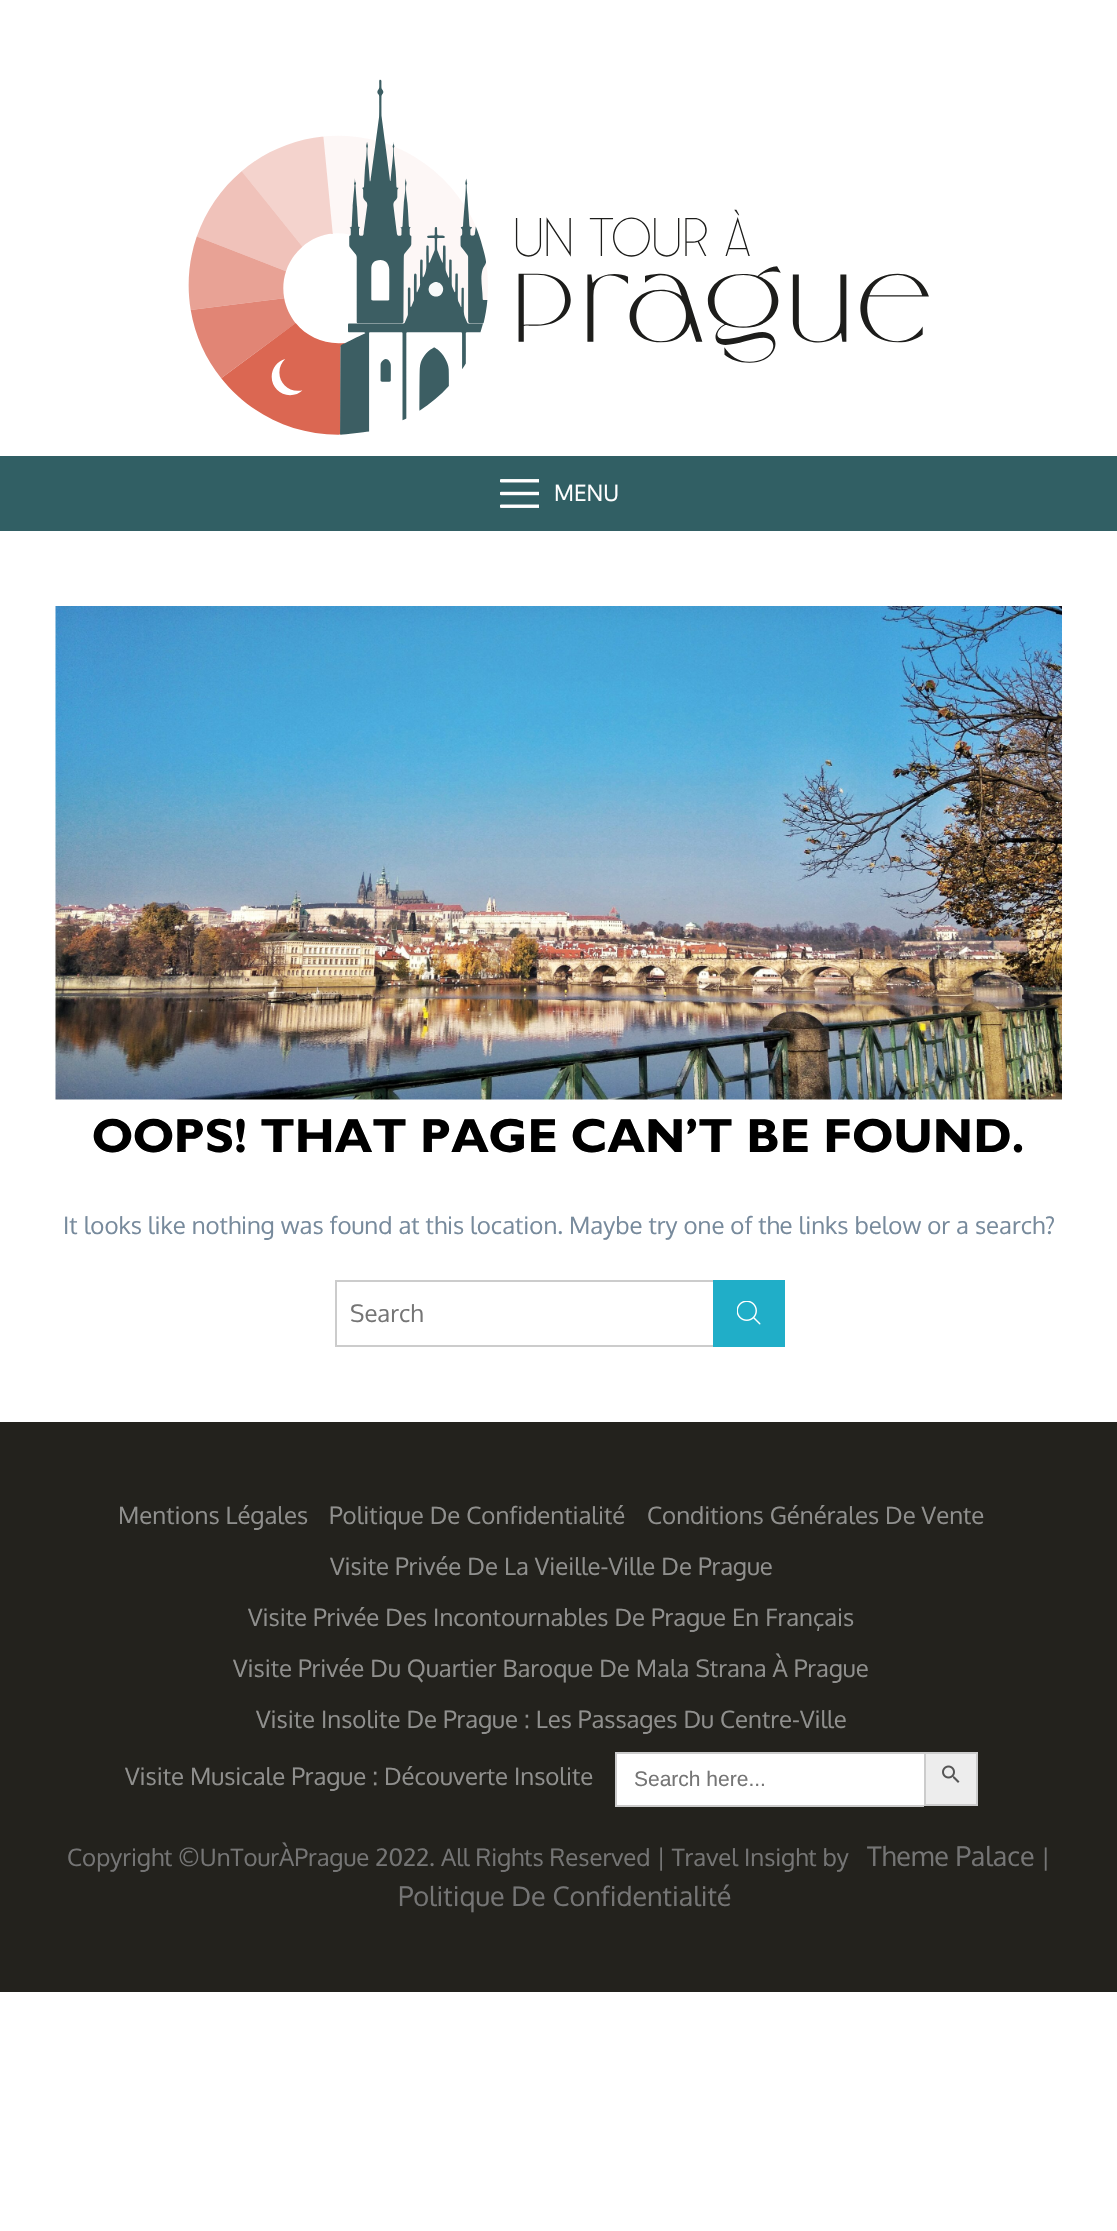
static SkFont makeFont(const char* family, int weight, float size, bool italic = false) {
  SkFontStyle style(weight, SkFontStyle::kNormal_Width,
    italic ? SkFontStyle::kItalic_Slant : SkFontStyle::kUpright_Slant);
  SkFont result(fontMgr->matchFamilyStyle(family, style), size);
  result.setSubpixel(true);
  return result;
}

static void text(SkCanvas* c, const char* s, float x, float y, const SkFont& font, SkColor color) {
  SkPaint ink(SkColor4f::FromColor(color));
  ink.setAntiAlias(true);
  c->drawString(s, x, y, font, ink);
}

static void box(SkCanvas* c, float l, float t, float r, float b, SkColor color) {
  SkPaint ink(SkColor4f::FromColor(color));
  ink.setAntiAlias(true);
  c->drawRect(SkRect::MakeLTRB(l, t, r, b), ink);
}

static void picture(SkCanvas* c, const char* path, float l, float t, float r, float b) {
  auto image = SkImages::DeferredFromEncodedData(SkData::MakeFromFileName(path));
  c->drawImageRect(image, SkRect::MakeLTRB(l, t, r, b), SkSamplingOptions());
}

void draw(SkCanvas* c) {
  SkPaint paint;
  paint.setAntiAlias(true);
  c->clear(0xffffffff);
  picture(c, "img_01.png", 188, 79, 929, 435);
  box(c, 0, 456, 1117, 531, 0xff315f64);
  picture(c, "img_02.png", 500, 479, 539, 508);
  SkFont face1 = makeFont("Oxygen", 400, 22.5f);
  text(c, "MENU", 554, 501, face1, 0xffffffff);
  picture(c, "img_03.png", 55, 606, 1062, 1100);
  SkFont face2 = makeFont("Gill Sans", 700, 48);
  text(c, "OOPS! THAT PAGE CAN’T BE FOUND.", 92, 1152, face2, 0xff000000);
  SkFont face3 = makeFont("Oxygen", 400, 24);
  text(c, "It looks like nothing was found at this location. Maybe try one of the links below or a search?", 63, 1234, face3, 0xff778a9c);
  paint.setStyle(SkPaint::kStroke_Style);
  paint.setStrokeWidth(2);
  paint.setColor(0xffcccccc);
  c->drawRect(SkRect::MakeLTRB(336, 1281, 784, 1346), paint);
  text(c, "Search", 350, 1322, face3, 0xff757575);
  box(c, 713, 1280, 785, 1347, 0xff20aec8);
  picture(c, "img_04.png", 737, 1301, 761, 1325);
  box(c, 0, 1422, 1117, 1992, 0xff23221d);
  text(c, "Mentions Légales", 118, 1524, face3, 0xff90908e);
  text(c, "Politique De Confidentialité", 329, 1524, face3, 0xff90908e);
  text(c, "Conditions Générales De Vente", 647, 1524, face3, 0xff90908e);
  text(c, "Visite Privée De La Vieille-Ville De Prague", 330, 1575, face3, 0xff90908e);
  text(c, "Visite Privée Des Incontournables De Prague En Français", 248, 1626, face3, 0xff90908e);
  text(c, "Visite Privée Du Quartier Baroque De Mala Strana À Prague", 233, 1677, face3, 0xff90908e);
  text(c, "Visite Insolite De Prague : Les Passages Du Centre-Ville", 256, 1728, face3, 0xff90908e);
  text(c, "Visite Musicale Prague : Découverte Insolite", 125, 1785, face3, 0xff90908e);
  box(c, 617, 1754, 924, 1805, 0xffffffff);
  box(c, 615, 1752, 924, 1754, 0xffcccccc);
  box(c, 615, 1805, 924, 1807, 0xffcccccc);
  box(c, 615, 1752, 617, 1806, 0xffcccccc);
  SkFont face4 = makeFont("Liberation Sans", 400, 21);
  text(c, "Search here...", 634, 1786, face4, 0xff757575);
  paint.setStyle(SkPaint::kFill_Style);
  paint.setColor(0xffededed);
  c->drawRect(SkRect::MakeLTRB(925, 1753, 977, 1805), paint);
  paint.setStyle(SkPaint::kStroke_Style);
  paint.setColor(0xffcccccc);
  c->drawRect(SkRect::MakeLTRB(925, 1753, 977, 1805), paint);
  picture(c, "img_05.png", 942, 1765, 960, 1783);
  text(c, "Copyright ©UnTourÀPrague 2022. All Rights Reserved | Travel Insight by", 67, 1866, face3, 0xff757575);
  SkFont face5 = makeFont("Oxygen", 400, 27);
  text(c, "Theme Palace", 867, 1866, face5, 0xff757575);
  text(c, "|", 1041, 1866, face3, 0xff757575);
  text(c, "Politique De Confidentialité", 398, 1906, face5, 0xff757575);
}
